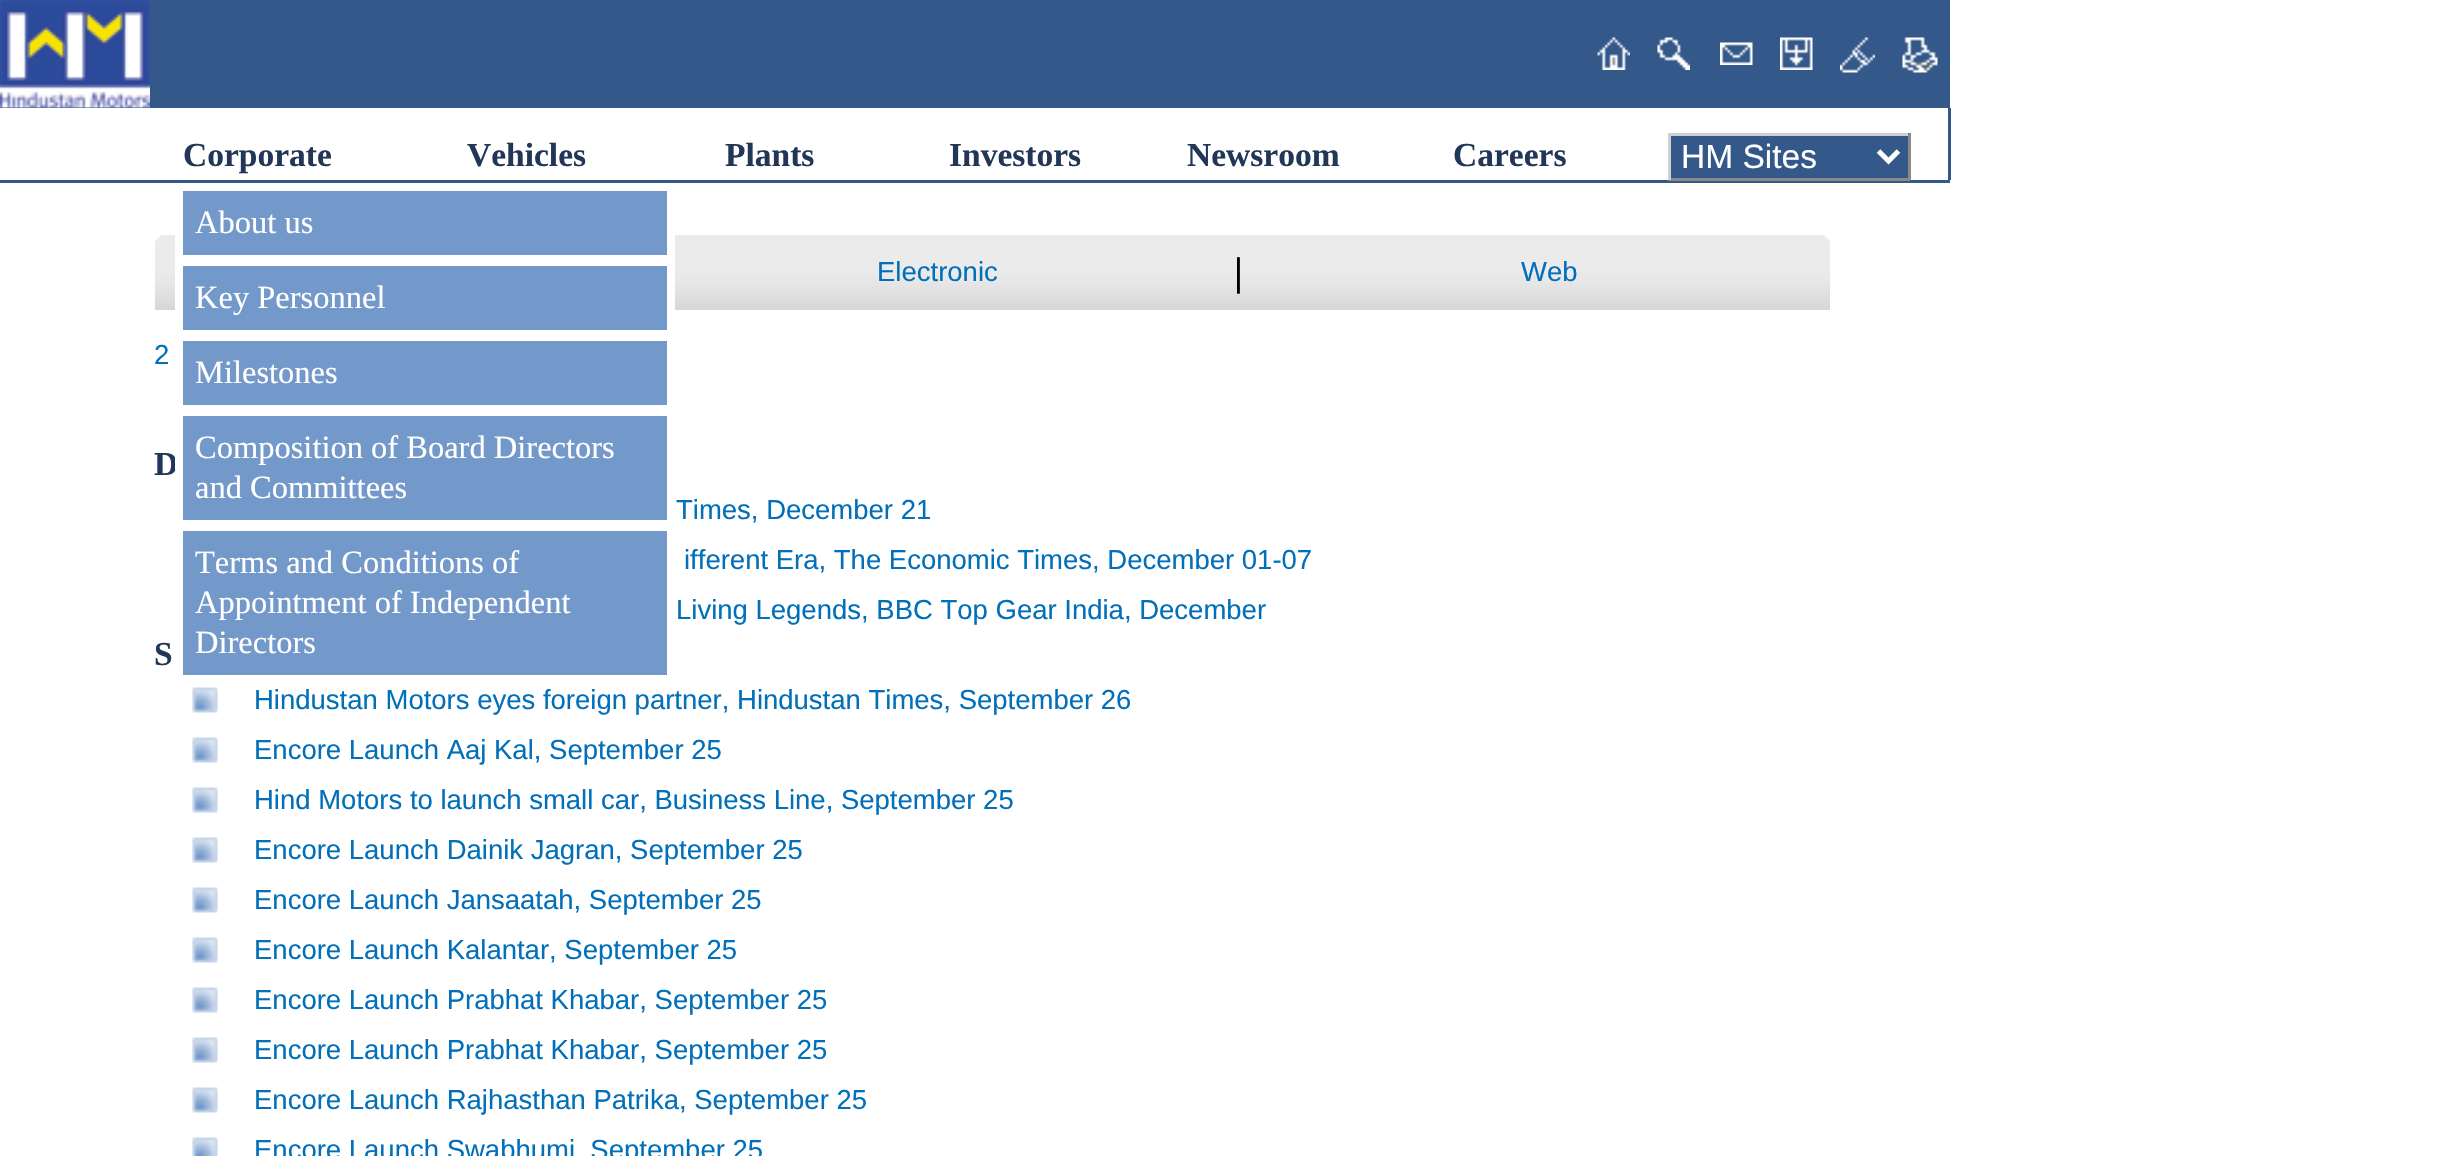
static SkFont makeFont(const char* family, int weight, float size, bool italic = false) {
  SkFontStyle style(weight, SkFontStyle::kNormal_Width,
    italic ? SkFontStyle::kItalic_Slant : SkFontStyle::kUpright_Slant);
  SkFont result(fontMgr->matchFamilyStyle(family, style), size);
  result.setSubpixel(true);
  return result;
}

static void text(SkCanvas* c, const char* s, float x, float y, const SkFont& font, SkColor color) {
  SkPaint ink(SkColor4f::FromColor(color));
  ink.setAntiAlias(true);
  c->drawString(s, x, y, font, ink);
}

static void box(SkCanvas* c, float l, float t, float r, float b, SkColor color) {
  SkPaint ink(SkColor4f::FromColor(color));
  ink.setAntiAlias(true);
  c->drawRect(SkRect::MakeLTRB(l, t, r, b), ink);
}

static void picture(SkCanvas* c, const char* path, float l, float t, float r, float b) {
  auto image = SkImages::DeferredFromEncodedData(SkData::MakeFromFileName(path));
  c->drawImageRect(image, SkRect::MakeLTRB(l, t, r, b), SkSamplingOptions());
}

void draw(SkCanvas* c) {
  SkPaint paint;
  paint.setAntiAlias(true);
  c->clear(0xffffffff);
  box(c, 0, 0, 1950, 108, 0xff345889);
  picture(c, "img_01.png", 0, 0, 150, 108);
  picture(c, "img_02.png", 1597, 37, 1630, 70);
  picture(c, "img_03.png", 1657, 37, 1690, 70);
  picture(c, "img_04.png", 1720, 42, 1753, 65);
  picture(c, "img_05.png", 1780, 37, 1813, 70);
  picture(c, "img_06.png", 1840, 37, 1875, 73);
  picture(c, "img_07.png", 1902, 37, 1938, 73);
  SkFont face1 = makeFont("Liberation Serif", 700, 33.5f);
  text(c, "Corporate", 183, 166, face1, 0xff223657);
  text(c, "Vehicles", 467, 166, face1, 0xff223657);
  text(c, "Plants", 725, 166, face1, 0xff223657);
  text(c, "Investors", 949, 166, face1, 0xff223657);
  text(c, "Newsroom", 1187, 166, face1, 0xff223657);
  text(c, "Careers", 1453, 166, face1, 0xff223657);
  box(c, 1671, 136, 1908, 178, 0xff345889);
  box(c, 1668, 133, 1910, 136, 0xffcecfce);
  box(c, 1908, 133, 1911, 180, 0xff898a89);
  box(c, 0, 180, 1950, 183, 0xff345889);
  box(c, 1668, 178, 1910, 181, 0xff898a89);
  box(c, 1668, 133, 1671, 180, 0xffcecfce);
  paint.setStyle(SkPaint::kStroke_Style);
  paint.setStrokeWidth(5);
  paint.setColor(0xffffffff);
  c->drawPath(SkPathBuilder().moveTo(1878.5f, 151).lineTo(1888.5f, 161).lineTo(1898.5f, 151).detach(), paint);
  SkFont face2 = makeFont("Liberation Sans", 400, 33.5f);
  text(c, "HM Sites", 1681, 168, face2, 0xffffffff);
  box(c, 1948, 108, 1951, 180, 0xff345889);
  picture(c, "img_08.png", 155, 235, 1830, 310);
  SkFont face3 = makeFont("Liberation Sans", 400, 27.5f);
  text(c, "Electronic", 877, 281, face3, 0xff016fba);
  SkFont face4 = makeFont("Liberation Serif", 700, 40);
  text(c, "|", 1234, 285, face4, 0xff000000);
  text(c, "Web", 1521, 281, face3, 0xff016fba);
  text(c, "2", 154, 364, face3, 0xff016fba);
  text(c, "D", 154, 475, face1, 0xff223657);
  text(c, "Times, December 21", 676, 519, face3, 0xff016fba);
  text(c, "ifferent Era, The Economic Times, December 01-07", 684, 569, face3, 0xff016fba);
  text(c, "Living Legends, BBC Top Gear India, December", 676, 619, face3, 0xff016fba);
  text(c, "S", 154, 665, face1, 0xff223657);
  picture(c, "img_09.png", 192, 687, 218, 713);
  text(c, "Hindustan Motors eyes foreign partner, Hindustan Times, September 26", 254, 709, face3, 0xff016fba);
  picture(c, "img_09.png", 192, 737, 218, 763);
  text(c, "Encore Launch Aaj Kal, September 25", 254, 759, face3, 0xff016fba);
  picture(c, "img_09.png", 192, 787, 218, 813);
  text(c, "Hind Motors to launch small car, Business Line, September 25", 254, 809, face3, 0xff016fba);
  picture(c, "img_09.png", 192, 837, 218, 863);
  text(c, "Encore Launch Dainik Jagran, September 25", 254, 859, face3, 0xff016fba);
  picture(c, "img_09.png", 192, 887, 218, 913);
  text(c, "Encore Launch Jansaatah, September 25", 254, 909, face3, 0xff016fba);
  picture(c, "img_09.png", 192, 937, 218, 963);
  text(c, "Encore Launch Kalantar, September 25", 254, 959, face3, 0xff016fba);
  picture(c, "img_09.png", 192, 987, 218, 1013);
  text(c, "Encore Launch Prabhat Khabar, September 25", 254, 1009, face3, 0xff016fba);
  picture(c, "img_09.png", 192, 1037, 218, 1063);
  text(c, "Encore Launch Prabhat Khabar, September 25", 254, 1059, face3, 0xff016fba);
  picture(c, "img_09.png", 192, 1087, 218, 1113);
  text(c, "Encore Launch Rajhasthan Patrika, September 25", 254, 1109, face3, 0xff016fba);
  picture(c, "img_10.png", 192, 1137, 218, 1156);
  text(c, "Encore Launch Swabhumi, September 25", 254, 1159, face3, 0xff016fba);
  box(c, 175, 235, 675, 470, 0xffffffff);
  box(c, 183, 191, 667, 255, 0xff7398ca);
  SkFont face5 = makeFont("Liberation Serif", 400, 32.5f);
  text(c, "About us", 195, 233, face5, 0xffffffff);
  box(c, 183, 266, 667, 330, 0xff7398ca);
  text(c, "Key Personnel", 195, 308, face5, 0xffffffff);
  box(c, 183, 341, 667, 405, 0xff7398ca);
  text(c, "Milestones", 195, 383, face5, 0xffffffff);
  box(c, 183, 416, 667, 520, 0xff7398ca);
  text(c, "Composition of Board Directors", 195, 458, face5, 0xffffffff);
  text(c, "and Committees", 195, 498, face5, 0xffffffff);
  box(c, 183, 531, 667, 675, 0xff7398ca);
  text(c, "Terms and Conditions of", 195, 573, face5, 0xffffffff);
  text(c, "Appointment of Independent", 195, 613, face5, 0xffffffff);
  text(c, "Directors", 195, 653, face5, 0xffffffff);
}
